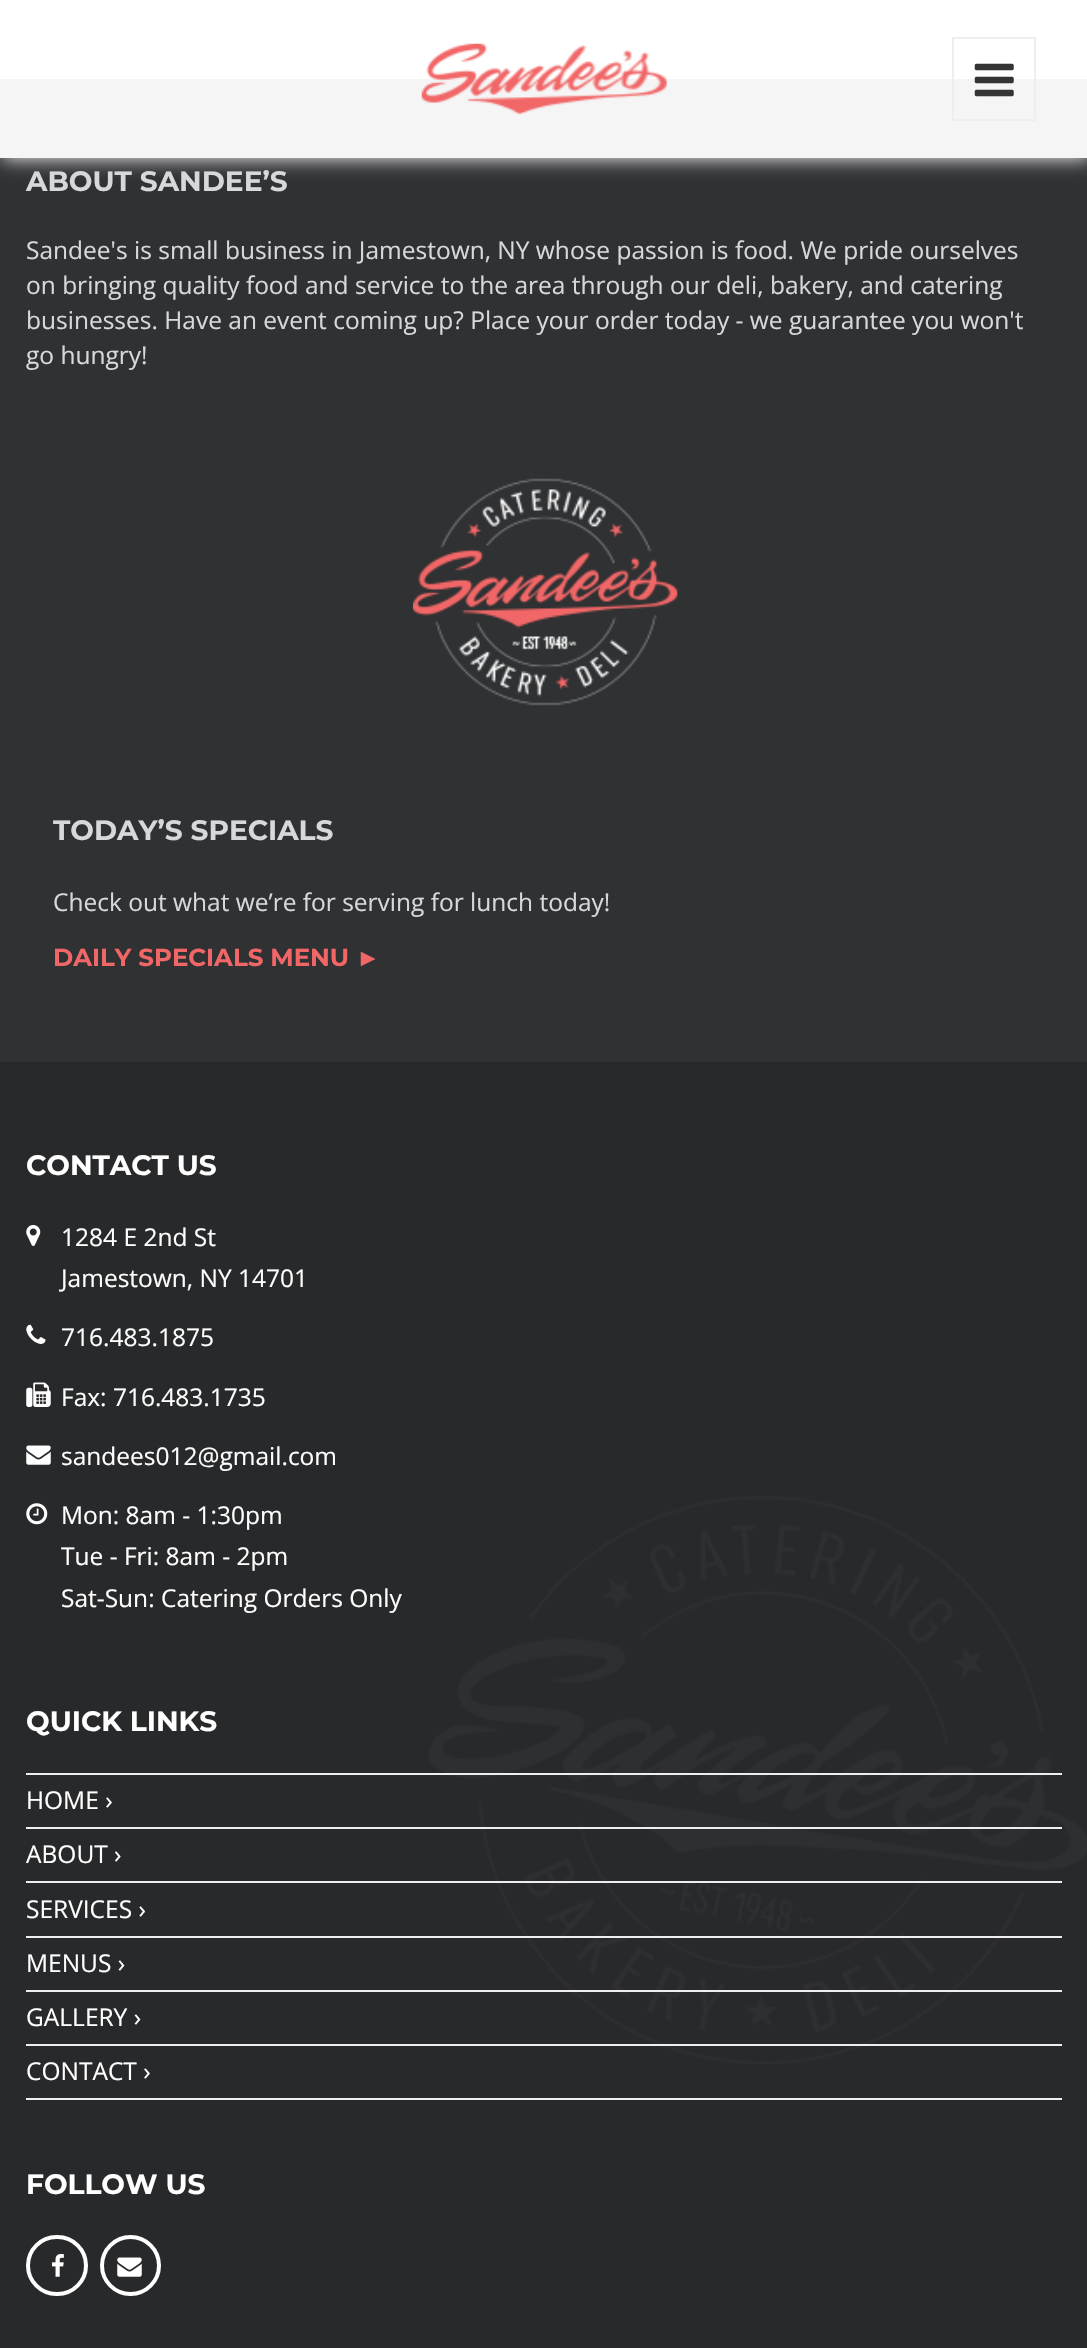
static SkFont makeFont(const char* family, int weight, float size, bool italic = false) {
  SkFontStyle style(weight, SkFontStyle::kNormal_Width,
    italic ? SkFontStyle::kItalic_Slant : SkFontStyle::kUpright_Slant);
  SkFont result(fontMgr->matchFamilyStyle(family, style), size);
  result.setSubpixel(true);
  return result;
}

static void text(SkCanvas* c, const char* s, float x, float y, const SkFont& font, SkColor color) {
  SkPaint ink(SkColor4f::FromColor(color));
  ink.setAntiAlias(true);
  c->drawString(s, x, y, font, ink);
}

static void box(SkCanvas* c, float l, float t, float r, float b, SkColor color) {
  SkPaint ink(SkColor4f::FromColor(color));
  ink.setAntiAlias(true);
  c->drawRect(SkRect::MakeLTRB(l, t, r, b), ink);
}

static void picture(SkCanvas* c, const char* path, float l, float t, float r, float b) {
  auto image = SkImages::DeferredFromEncodedData(SkData::MakeFromFileName(path));
  c->drawImageRect(image, SkRect::MakeLTRB(l, t, r, b), SkSamplingOptions());
}

void draw(SkCanvas* c) {
  SkPaint paint;
  paint.setAntiAlias(true);
  c->clear(0xffffffff);
  box(c, 0, 79, 1087, 1062, 0xff303133);
  c->save();
  c->clipPath(SkPathBuilder(SkPathFillType::kEvenOdd).moveTo(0, 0).lineTo(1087, 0).lineTo(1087, 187).lineTo(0, 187).close().moveTo(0, 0).lineTo(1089, 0).lineTo(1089, 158).lineTo(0, 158).close().detach(), true);
  paint.setColor(0xfff0f0f0);
  paint.setMaskFilter(SkMaskFilter::MakeBlur(kNormal_SkBlurStyle, 9));
  c->drawRect(SkRect::MakeLTRB(2, 2, 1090, 159), paint);
  paint.setMaskFilter(nullptr);
  c->restore();
  box(c, 0, 79, 1087, 158, 0xf2ffffff);
  picture(c, "img_01.png", 421, 43, 667, 115);
  paint.setStyle(SkPaint::kStroke_Style);
  paint.setStrokeWidth(2);
  paint.setColor(0xffeeeeee);
  c->drawRect(SkRect::MakeLTRB(953, 38, 1035, 120), paint);
  picture(c, "img_02.png", 974, 63, 1014, 97);
  SkFont face1 = makeFont("Montserrat", 700, 28);
  text(c, "ABOUT SANDEE’S", 26, 191, face1, 0xffd6d8db);
  SkFont face2 = makeFont("Open Sans", 400, 24.5f);
  text(c, "Sandee's is small business in Jamestown, NY whose passion is food. We pride ourselves", 26, 259, face2, 0xffd6d8db);
  text(c, "on bringing quality food and service to the area through our deli, bakery, and catering", 26, 294, face2, 0xffd6d8db);
  text(c, "businesses. Have an event coming up? Place your order today - we guarantee you won't", 26, 329, face2, 0xffd6d8db);
  text(c, "go hungry!", 26, 364, face2, 0xffd6d8db);
  picture(c, "img_03.png", 413, 478, 678, 706);
  text(c, "TODAY’S SPECIALS", 53, 840, face1, 0xffd6d8db);
  text(c, "Check out what we’re for serving for lunch today!", 53, 911, face2, 0xffd6d8db);
  SkFont face3 = makeFont("Montserrat", 700, 24.5f);
  text(c, "DAILY SPECIALS MENU", 53, 966, face3, 0xfff16667);
  SkFont face4 = makeFont("Liberation Serif", 700, 24.5f);
  text(c, "►", 356, 966, face4, 0xfff16667);
  box(c, 0, 1062, 1087, 2348, 0xff28292b);
  picture(c, "img_04.png", 429, 1496, 1087, 2064);
  text(c, "CONTACT US", 26, 1175, face1, 0xffffffff);
  picture(c, "img_05.png", 26, 1225, 41, 1246);
  text(c, "1284 E 2nd St", 61, 1246, face2, 0xffffffff);
  text(c, "Jamestown, NY 14701", 61, 1287, face2, 0xffffffff);
  picture(c, "img_06.png", 26, 1324, 46, 1344);
  text(c, "716.483.1875", 61, 1346, face2, 0xffffffff);
  picture(c, "img_07.png", 26, 1382, 51, 1407);
  text(c, "Fax: 716.483.1735", 61, 1406, face2, 0xffffffff);
  picture(c, "img_08.png", 26, 1445, 51, 1465);
  text(c, "sandees012@gmail.com", 61, 1465, face2, 0xffffffff);
  picture(c, "img_09.png", 26, 1503, 48, 1525);
  text(c, "Mon: 8am - 1:30pm", 61, 1524, face2, 0xffffffff);
  text(c, "Tue - Fri: 8am - 2pm", 61, 1565, face2, 0xffffffff);
  text(c, "Sat-Sun: Catering Orders Only", 61, 1607, face2, 0xffffffff);
  text(c, "QUICK LINKS", 26, 1731, face1, 0xffffffff);
  box(c, 26, 1773, 1062, 1775, 0xffeeeeee);
  text(c, "HOME ›", 26, 1809, face2, 0xffffffff);
  box(c, 26, 1827, 1062, 1829, 0xffeeeeee);
  text(c, "ABOUT ›", 26, 1863, face2, 0xffffffff);
  box(c, 26, 1881, 1062, 1883, 0xffeeeeee);
  text(c, "SERVICES ›", 26, 1918, face2, 0xffffffff);
  box(c, 26, 1936, 1062, 1938, 0xffeeeeee);
  text(c, "MENUS ›", 26, 1972, face2, 0xffffffff);
  box(c, 26, 1990, 1062, 1992, 0xffeeeeee);
  text(c, "GALLERY ›", 26, 2026, face2, 0xffffffff);
  box(c, 26, 2044, 1062, 2046, 0xffeeeeee);
  text(c, "CONTACT ›", 26, 2080, face2, 0xffffffff);
  box(c, 26, 2098, 1062, 2100, 0xffeeeeee);
  text(c, "FOLLOW US", 26, 2194, face1, 0xffffffff);
  paint.setStrokeWidth(4);
  paint.setColor(0xffffffff);
  c->drawRoundRect(SkRect::MakeLTRB(28, 2237, 86, 2294), 28.5f, 28.5f, paint);
  picture(c, "img_10.png", 52, 2254, 64, 2277);
  c->drawCircle(130.5f, 2265.5f, 28.5f, paint);
  picture(c, "img_08.png", 117, 2257, 142, 2277);
}
